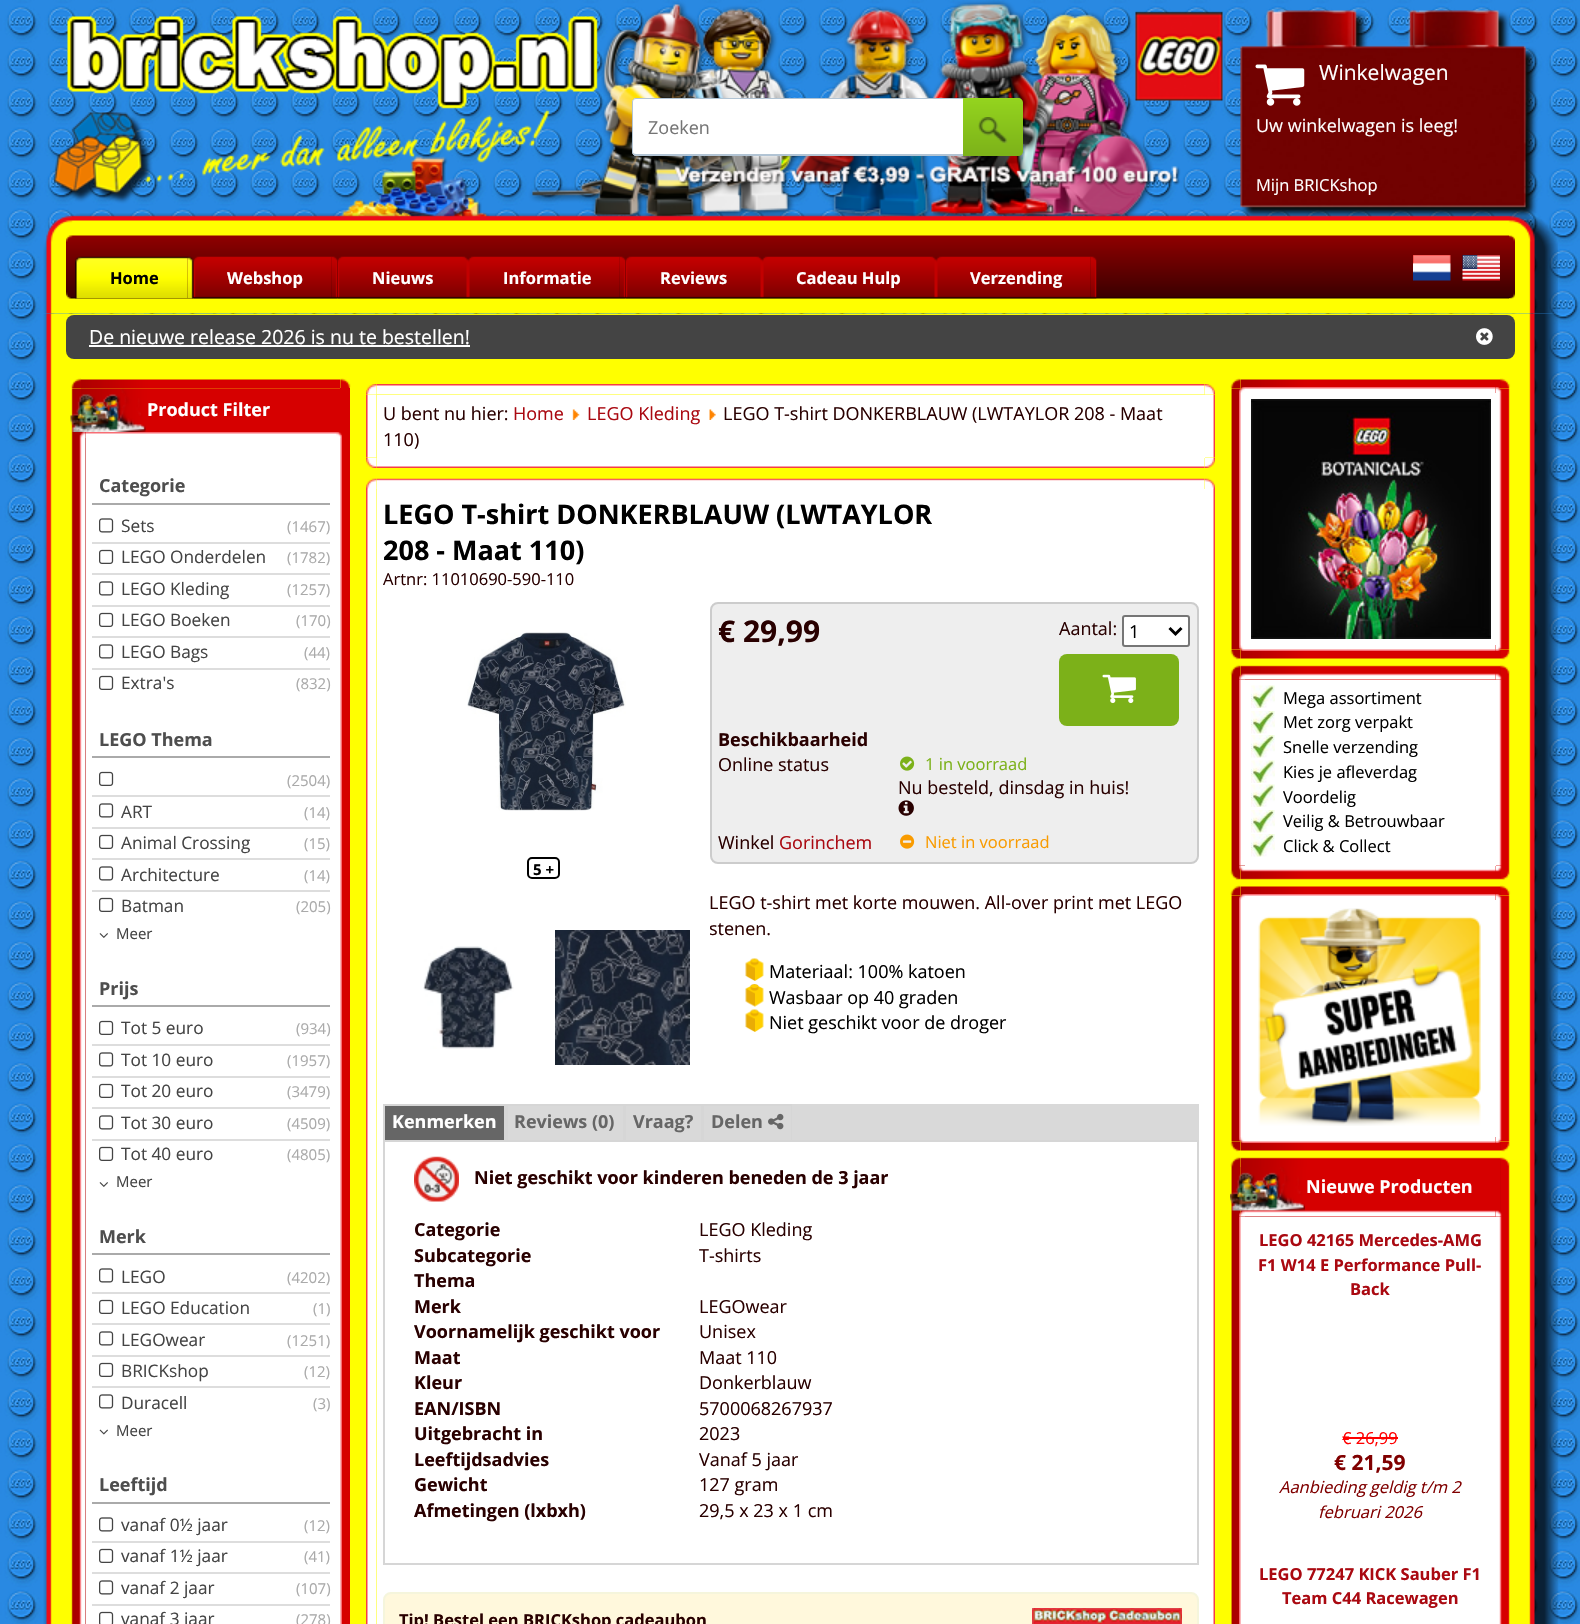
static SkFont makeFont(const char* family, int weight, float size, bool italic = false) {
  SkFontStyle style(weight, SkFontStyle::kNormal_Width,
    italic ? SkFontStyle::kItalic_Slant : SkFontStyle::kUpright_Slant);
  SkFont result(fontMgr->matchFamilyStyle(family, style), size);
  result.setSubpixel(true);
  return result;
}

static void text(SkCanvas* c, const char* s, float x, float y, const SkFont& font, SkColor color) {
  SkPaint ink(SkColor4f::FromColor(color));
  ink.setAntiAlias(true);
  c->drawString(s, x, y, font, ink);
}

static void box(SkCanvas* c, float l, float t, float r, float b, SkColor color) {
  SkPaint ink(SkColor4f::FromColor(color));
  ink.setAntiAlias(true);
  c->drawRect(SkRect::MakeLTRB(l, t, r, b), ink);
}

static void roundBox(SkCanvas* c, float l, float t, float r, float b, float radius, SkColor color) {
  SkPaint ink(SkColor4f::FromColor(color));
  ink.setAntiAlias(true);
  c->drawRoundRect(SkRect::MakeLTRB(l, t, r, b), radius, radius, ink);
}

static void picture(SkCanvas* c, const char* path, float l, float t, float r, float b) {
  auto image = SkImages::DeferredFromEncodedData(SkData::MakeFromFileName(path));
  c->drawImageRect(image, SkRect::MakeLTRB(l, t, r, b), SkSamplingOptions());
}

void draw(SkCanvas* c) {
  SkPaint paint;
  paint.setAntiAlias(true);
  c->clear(0xffffffff);
  picture(c, "img_01.png", 0, 0, 1580, 1624);
  picture(c, "img_02.png", 53, 0, 1538, 218);
  paint.setColor(0xffffffff);
  c->drawPath(SkPathBuilder().moveTo(637, 98).lineTo(963, 98).lineTo(963, 156).lineTo(637, 156).cubicTo(634, 156, 632, 154, 632, 151).lineTo(632, 103).cubicTo(632, 100, 634, 98, 637, 98).close().detach(), paint);
  paint.setColor(0xffb2c4d4);
  c->drawPath(SkPathBuilder(SkPathFillType::kEvenOdd).moveTo(636, 98).lineTo(963, 98).lineTo(963, 156).lineTo(636, 156).cubicTo(634, 156, 632, 154, 632, 152).lineTo(632, 102).cubicTo(632, 100, 634, 98, 636, 98).close().moveTo(636, 99).lineTo(963, 99).lineTo(963, 154).lineTo(636, 154).cubicTo(634, 154, 633, 153, 633, 152).lineTo(633, 102).cubicTo(633, 100, 634, 99, 636, 99).close().detach(), paint);
  SkFont face1 = makeFont("Open Sans", 400, 18);
  text(c, "Zoeken", 648, 134, face1, 0xff757575);
  {
    const SkColor colors[] = {0xff94d41e, 0xff7cb119};
    const float stops[] = {0, 1};
    const SkPoint ends[] = {{993, 98}, {993, 156}};
    paint.setShader(SkGradientShader::MakeLinear(ends, colors, stops, 2, SkTileMode::kClamp));
    paint.setAlpha(255);
  }
  c->drawPath(SkPathBuilder().moveTo(963, 98).lineTo(1018, 98).cubicTo(1021, 98, 1023, 100, 1023, 103).lineTo(1023, 151).cubicTo(1023, 154, 1021, 156, 1018, 156).lineTo(963, 156).close().detach(), paint);
  picture(c, "img_03.png", 978, 117, 1008, 144);
  picture(c, "img_04.png", 1255, 64, 1305, 106);
  SkFont face2 = makeFont("Open Sans", 400, 21);
  text(c, "Winkelwagen", 1319, 80, face2, 0xffffffff);
  text(c, "Uw winkelwagen is leeg!", 1256, 132, face1, 0xffffffff);
  SkFont face3 = makeFont("Open Sans", 400, 16.5f);
  text(c, "Mijn BRICKshop", 1256, 191, face3, 0xffffffff);
  picture(c, "img_05.png", 43, 213, 144, 314);
  picture(c, "img_06.png", 144, 213, 1437, 314);
  picture(c, "img_07.png", 1437, 213, 1558, 314);
  picture(c, "img_08.png", 66, 235, 1509, 299);
  picture(c, "img_09.png", 1509, 235, 1515, 299);
  picture(c, "img_10.png", 75, 256, 188, 299);
  picture(c, "img_11.png", 187, 256, 194, 299);
  SkFont face4 = makeFont("Open Sans", 700, 16.5f);
  text(c, "Home", 110, 284, face4, 0xff000000);
  picture(c, "img_12.png", 193, 256, 332, 299);
  picture(c, "img_13.png", 331, 256, 338, 299);
  text(c, "Webshop", 227, 284, face4, 0xffffffff);
  picture(c, "img_14.png", 337, 256, 462, 299);
  picture(c, "img_15.png", 462, 256, 468, 299);
  text(c, "Nieuws", 372, 284, face4, 0xffffffff);
  picture(c, "img_16.png", 468, 256, 620, 299);
  picture(c, "img_13.png", 619, 256, 626, 299);
  text(c, "Informatie", 503, 284, face4, 0xffffffff);
  picture(c, "img_17.png", 625, 256, 756, 299);
  picture(c, "img_15.png", 756, 256, 762, 299);
  text(c, "Reviews", 660, 284, face4, 0xffffffff);
  picture(c, "img_18.png", 762, 256, 930, 299);
  picture(c, "img_15.png", 930, 256, 936, 299);
  text(c, "Cadeau Hulp", 796, 284, face4, 0xffffffff);
  picture(c, "img_19.png", 936, 256, 1091, 299);
  picture(c, "img_13.png", 1090, 256, 1097, 299);
  text(c, "Verzending", 970, 284, face4, 0xffffffff);
  picture(c, "img_20.png", 1413, 255, 1451, 281);
  picture(c, "img_21.png", 1462, 255, 1500, 281);
  picture(c, "img_119.png", 43, 313, 144, 1624);
  box(c, 144, 314, 1437, 1624, 0xffffff00);
  picture(c, "img_120.png", 1437, 313, 1559, 1624);
  roundBox(c, 66, 315, 1515, 359, 8, 0xff444444);
  SkFont face5 = makeFont("Open Sans", 400, 19.5f);
  text(c, "De nieuwe release 2026 is nu te bestellen!", 89, 344, face5, 0xffffffff);
  box(c, 89, 345, 470, 347, 0xffffffff);
  picture(c, "img_22.png", 1476, 328, 1493, 345);
  picture(c, "img_23.png", 70, 378, 81, 389);
  picture(c, "img_25.png", 340, 378, 351, 389);
  picture(c, "img_24.png", 81, 379, 341, 389);
  picture(c, "img_26.png", 71, 388, 81, 1624);
  picture(c, "img_27.png", 81, 388, 340, 1624);
  box(c, 340, 388, 350, 1624, 0xffd60000);
  picture(c, "img_28.png", 70, 388, 146, 432);
  SkFont face6 = makeFont("Open Sans", 700, 18);
  text(c, "Product Filter", 147, 416, face6, 0xffffffff);
  picture(c, "img_29.png", 79, 432, 86, 438);
  picture(c, "img_30.png", 85, 432, 336, 438);
  picture(c, "img_31.png", 336, 432, 342, 438);
  picture(c, "img_32.png", 79, 438, 86, 1624);
  box(c, 86, 438, 336, 1624, 0xffffffff);
  picture(c, "img_33.png", 336, 438, 342, 1624);
  box(c, 92, 503, 330, 505, 0xffaaaaaa);
  text(c, "Categorie", 99, 492, face6, 0xff4e4e4e);
  picture(c, "img_34.png", 99, 518, 114, 533);
  SkFont face7 = makeFont("Open Sans", 400, 17.25f);
  text(c, "Sets", 121, 532, face7, 0xff444444);
  SkFont face8 = makeFont("Open Sans", 400, 15);
  text(c, "(1467)", 287, 532, face8, 0xffaaaaaa);
  box(c, 92, 542, 330, 544, 0xffdddddd);
  picture(c, "img_35.png", 99, 549, 114, 564);
  text(c, "LEGO Onderdelen", 121, 563, face7, 0xff444444);
  text(c, "(1782)", 287, 563, face8, 0xffaaaaaa);
  box(c, 92, 573, 330, 575, 0xffdddddd);
  picture(c, "img_34.png", 99, 581, 114, 596);
  text(c, "LEGO Kleding", 121, 595, face7, 0xff444444);
  text(c, "(1257)", 287, 595, face8, 0xffaaaaaa);
  box(c, 92, 605, 330, 607, 0xffdddddd);
  picture(c, "img_35.png", 99, 612, 114, 627);
  text(c, "LEGO Boeken", 121, 626, face7, 0xff444444);
  text(c, "(170)", 296, 626, face8, 0xffaaaaaa);
  box(c, 92, 636, 330, 638, 0xffdddddd);
  picture(c, "img_34.png", 99, 644, 114, 659);
  text(c, "LEGO Bags", 121, 658, face7, 0xff444444);
  text(c, "(44)", 304, 658, face8, 0xffaaaaaa);
  box(c, 92, 668, 330, 670, 0xffdddddd);
  picture(c, "img_35.png", 99, 675, 114, 690);
  text(c, "Extra's", 121, 689, face7, 0xff444444);
  text(c, "(832)", 296, 689, face8, 0xffaaaaaa);
  box(c, 92, 756, 330, 758, 0xffaaaaaa);
  text(c, "LEGO Thema", 99, 746, face6, 0xff4e4e4e);
  picture(c, "img_35.png", 99, 771, 114, 786);
  text(c, "(2504)", 287, 786, face8, 0xffaaaaaa);
  box(c, 92, 795, 330, 797, 0xffdddddd);
  picture(c, "img_34.png", 99, 803, 114, 818);
  text(c, "ART", 121, 818, face7, 0xff444444);
  text(c, "(14)", 304, 818, face8, 0xffaaaaaa);
  box(c, 92, 827, 330, 829, 0xffdddddd);
  picture(c, "img_35.png", 99, 834, 114, 849);
  text(c, "Animal Crossing", 121, 849, face7, 0xff444444);
  text(c, "(15)", 304, 849, face8, 0xffaaaaaa);
  box(c, 92, 858, 330, 860, 0xffdddddd);
  picture(c, "img_34.png", 99, 866, 114, 881);
  text(c, "Architecture", 121, 881, face7, 0xff444444);
  text(c, "(14)", 304, 881, face8, 0xffaaaaaa);
  box(c, 92, 890, 330, 892, 0xffdddddd);
  picture(c, "img_35.png", 99, 897, 114, 912);
  text(c, "Batman", 121, 912, face7, 0xff444444);
  text(c, "(205)", 296, 912, face8, 0xffaaaaaa);
  picture(c, "img_36.png", 99, 933, 108, 938);
  text(c, "Meer", 116, 939, face8, 0xff444444);
  box(c, 92, 1005, 330, 1007, 0xffaaaaaa);
  text(c, "Prijs", 99, 995, face6, 0xff4e4e4e);
  picture(c, "img_35.png", 99, 1020, 114, 1035);
  text(c, "Tot 5 euro", 121, 1034, face7, 0xff444444);
  text(c, "(934)", 296, 1034, face8, 0xffaaaaaa);
  box(c, 92, 1044, 330, 1046, 0xffdddddd);
  picture(c, "img_34.png", 99, 1052, 114, 1067);
  text(c, "Tot 10 euro", 121, 1066, face7, 0xff444444);
  text(c, "(1957)", 287, 1066, face8, 0xffaaaaaa);
  box(c, 92, 1076, 330, 1078, 0xffdddddd);
  picture(c, "img_35.png", 99, 1083, 114, 1098);
  text(c, "Tot 20 euro", 121, 1097, face7, 0xff444444);
  text(c, "(3479)", 287, 1097, face8, 0xffaaaaaa);
  box(c, 92, 1107, 330, 1109, 0xffdddddd);
  picture(c, "img_34.png", 99, 1115, 114, 1130);
  text(c, "Tot 30 euro", 121, 1129, face7, 0xff444444);
  text(c, "(4509)", 287, 1129, face8, 0xffaaaaaa);
  box(c, 92, 1139, 330, 1141, 0xffdddddd);
  picture(c, "img_35.png", 99, 1146, 114, 1161);
  text(c, "Tot 40 euro", 121, 1160, face7, 0xff444444);
  text(c, "(4805)", 287, 1160, face8, 0xffaaaaaa);
  picture(c, "img_36.png", 99, 1182, 108, 1187);
  text(c, "Meer", 116, 1187, face8, 0xff444444);
  box(c, 92, 1253, 330, 1255, 0xffaaaaaa);
  text(c, "Merk", 99, 1243, face6, 0xff4e4e4e);
  picture(c, "img_34.png", 99, 1268, 114, 1283);
  text(c, "LEGO", 121, 1283, face7, 0xff444444);
  text(c, "(4202)", 287, 1283, face8, 0xffaaaaaa);
  box(c, 92, 1292, 330, 1294, 0xffdddddd);
  picture(c, "img_35.png", 99, 1299, 114, 1314);
  text(c, "LEGO Education", 121, 1314, face7, 0xff444444);
  text(c, "(1)", 313, 1314, face8, 0xffaaaaaa);
  box(c, 92, 1323, 330, 1325, 0xffdddddd);
  picture(c, "img_34.png", 99, 1331, 114, 1346);
  text(c, "LEGOwear", 121, 1346, face7, 0xff444444);
  text(c, "(1251)", 287, 1346, face8, 0xffaaaaaa);
  box(c, 92, 1355, 330, 1357, 0xffdddddd);
  picture(c, "img_35.png", 99, 1362, 114, 1377);
  text(c, "BRICKshop", 121, 1377, face7, 0xff444444);
  text(c, "(12)", 304, 1377, face8, 0xffaaaaaa);
  box(c, 92, 1386, 330, 1388, 0xffdddddd);
  picture(c, "img_34.png", 99, 1394, 114, 1409);
  text(c, "Duracell", 121, 1409, face7, 0xff444444);
  text(c, "(3)", 313, 1409, face8, 0xffaaaaaa);
  picture(c, "img_37.png", 99, 1429, 108, 1435);
  text(c, "Meer", 116, 1436, face8, 0xff444444);
  box(c, 92, 1502, 330, 1504, 0xffaaaaaa);
  text(c, "Leeftijd", 99, 1491, face6, 0xff4e4e4e);
  picture(c, "img_34.png", 99, 1517, 114, 1532);
  text(c, "vanaf 0½ jaar", 121, 1531, face7, 0xff444444);
  text(c, "(12)", 304, 1531, face8, 0xffaaaaaa);
  box(c, 92, 1541, 330, 1543, 0xffdddddd);
  picture(c, "img_35.png", 99, 1548, 114, 1563);
  text(c, "vanaf 1½ jaar", 121, 1562, face7, 0xff444444);
  text(c, "(41)", 304, 1562, face8, 0xffaaaaaa);
  box(c, 92, 1572, 330, 1574, 0xffdddddd);
  picture(c, "img_34.png", 99, 1580, 114, 1595);
  text(c, "vanaf 2 jaar", 121, 1594, face7, 0xff444444);
  text(c, "(107)", 296, 1594, face8, 0xffaaaaaa);
  box(c, 92, 1604, 330, 1606, 0xffdddddd);
  picture(c, "img_38.png", 99, 1611, 114, 1624);
  text(c, "vanaf 3 jaar", 121, 1625, face7, 0xff444444);
  text(c, "(278)", 296, 1625, face8, 0xffaaaaaa);
  picture(c, "img_39.png", 366, 384, 377, 395);
  picture(c, "img_41.png", 1204, 384, 1215, 395);
  picture(c, "img_40.png", 376, 384, 1205, 395);
  picture(c, "img_46.png", 366, 457, 377, 468);
  picture(c, "img_48.png", 1204, 457, 1215, 468);
  picture(c, "img_47.png", 376, 457, 1205, 468);
  picture(c, "img_42.png", 366, 394, 377, 458);
  picture(c, "img_43.png", 1204, 394, 1215, 458);
  box(c, 377, 395, 1205, 458, 0xffffffff);
  text(c, "U bent nu hier:", 383, 420, face1, 0xff290000);
  text(c, "Home", 513, 420, face1, 0xffaa0911);
  picture(c, "img_44.png", 572, 409, 580, 420);
  text(c, "LEGO Kleding", 587, 420, face1, 0xffaa0911);
  picture(c, "img_45.png", 709, 409, 716, 420);
  text(c, "LEGO T-shirt DONKERBLAUW (LWTAYLOR 208 - Maat", 723, 420, face1, 0xff290000);
  text(c, "110)", 383, 446, face1, 0xff290000);
  picture(c, "img_49.png", 366, 478, 377, 489);
  picture(c, "img_51.png", 1204, 478, 1215, 489);
  picture(c, "img_50.png", 376, 478, 1205, 489);
  picture(c, "img_52.png", 366, 489, 377, 1624);
  box(c, 377, 489, 1205, 1624, 0xffffffff);
  picture(c, "img_53.png", 1205, 489, 1215, 1624);
  SkFont face9 = makeFont("Open Sans", 700, 27);
  text(c, "LEGO T-shirt DONKERBLAUW (LWTAYLOR", 383, 524, face9, 0xff000000);
  text(c, "208 - Maat 110)", 383, 560, face9, 0xff000000);
  text(c, "Artnr: 11010690-590-110", 383, 585, face3, 0xff290000);
  picture(c, "img_54.png", 467, 632, 626, 811);
  paint.setStyle(SkPaint::kStroke_Style);
  paint.setStrokeWidth(2);
  paint.setShader(nullptr);
  paint.setColor(0xff000000);
  c->drawRoundRect(SkRect::MakeLTRB(528, 858, 559, 878), 4, 4, paint);
  SkFont face10 = makeFont("Open Sans", 700, 15);
  text(c, "5 +", 533, 875, face10, 0xff000000);
  picture(c, "img_55.png", 423, 946, 514, 1049);
  picture(c, "img_56.png", 555, 930, 690, 1065);
  paint.setStyle(SkPaint::kFill_Style);
  paint.setColor(0xffeeeeee);
  c->drawRoundRect(SkRect::MakeLTRB(711, 603, 1198, 863), 7, 7, paint);
  paint.setStyle(SkPaint::kStroke_Style);
  paint.setColor(0xffcccccc);
  c->drawRoundRect(SkRect::MakeLTRB(711, 603, 1198, 863), 7, 7, paint);
  SkFont face11 = makeFont("Open Sans", 700, 30);
  text(c, "€ 29,99", 718, 642, face11, 0xff290000);
  text(c, "Aantal:", 1059, 635, face1, 0xff290000);
  paint.setStyle(SkPaint::kFill_Style);
  paint.setColor(0xffffffff);
  c->drawRoundRect(SkRect::MakeLTRB(1123, 616, 1189, 646), 2, 2, paint);
  paint.setStyle(SkPaint::kStroke_Style);
  paint.setColor(0xff767676);
  c->drawRoundRect(SkRect::MakeLTRB(1123, 616, 1189, 646), 2, 2, paint);
  paint.setStrokeWidth(3);
  paint.setColor(0xff000000);
  c->drawPath(SkPathBuilder().moveTo(1169.5f, 628).lineTo(1175.5f, 634).lineTo(1181.5f, 628).detach(), paint);
  text(c, "1", 1129, 638, face1, 0xff000000);
  roundBox(c, 1059, 654, 1179, 726, 8, 0xff7cb119);
  picture(c, "img_57.png", 1102, 674, 1136, 704);
  text(c, "Beschikbaarheid", 718, 746, face6, 0xff290000);
  text(c, "Online status", 718, 771, face1, 0xff290000);
  picture(c, "img_58.png", 900, 756, 915, 771);
  text(c, "1 in voorraad", 925, 770, face3, 0xff7cb119);
  text(c, "Nu besteld, dinsdag in huis!", 898, 794, face1, 0xff290000);
  picture(c, "img_59.png", 898, 800, 914, 816);
  text(c, "Winkel", 718, 849, face1, 0xff290000);
  text(c, "Gorinchem", 779, 849, face1, 0xffaa0911);
  picture(c, "img_60.png", 900, 834, 915, 849);
  text(c, "Niet in voorraad", 925, 848, face3, 0xfff99b00);
  text(c, "LEGO t-shirt met korte mouwen. All-over print met LEGO", 709, 909, face1, 0xff290000);
  c->save();
  c->clipRect(SkRect::MakeLTRB(710, 890, 1199, 1053));
  text(c, "stenen.", 709, 935, face1, 0xff290000);
  c->restore();
  picture(c, "img_61.png", 745, 958, 764, 981);
  text(c, "Materiaal: 100% katoen", 769, 978, face1, 0xff000000);
  picture(c, "img_62.png", 745, 984, 764, 1007);
  text(c, "Wasbaar op 40 graden", 769, 1004, face1, 0xff000000);
  picture(c, "img_61.png", 745, 1009, 764, 1032);
  text(c, "Niet geschikt voor de droger", 769, 1029, face1, 0xff000000);
  box(c, 508, 1104, 1199, 1140, 0xffd9d9d9);
  box(c, 385, 1106, 504, 1140, 0xff666666);
  box(c, 383, 1104, 792, 1106, 0xffd6d6d6);
  box(c, 504, 1104, 508, 1140, 0xffd6d6d6);
  box(c, 383, 1104, 385, 1140, 0xffd6d6d6);
  text(c, "Kenmerken", 392, 1128, face6, 0xffffffff);
  box(c, 623, 1104, 626, 1140, 0xffd6d6d6);
  text(c, "Reviews (0)", 514, 1128, face6, 0xff666666);
  box(c, 701, 1104, 704, 1140, 0xffd6d6d6);
  text(c, "Vraag?", 633, 1128, face6, 0xff666666);
  box(c, 791, 1104, 792, 1140, 0xffd6d6d6);
  text(c, "Delen", 711, 1128, face6, 0xff666666);
  picture(c, "img_63.png", 768, 1113, 784, 1130);
  paint.setStrokeWidth(2);
  paint.setColor(0xffd6d6d6);
  c->drawRect(SkRect::MakeLTRB(384, 1141, 1198, 1564), paint);
  picture(c, "img_64.png", 414, 1156, 459, 1202);
  text(c, "Niet geschikt voor kinderen beneden de 3 jaar", 474, 1184, face6, 0xff290000);
  text(c, "Categorie", 414, 1236, face6, 0xff290000);
  text(c, "LEGO Kleding", 699, 1236, face1, 0xff290000);
  text(c, "Subcategorie", 414, 1262, face6, 0xff290000);
  text(c, "T-shirts", 699, 1262, face1, 0xff290000);
  text(c, "Thema", 414, 1287, face6, 0xff290000);
  text(c, "Merk", 414, 1313, face6, 0xff290000);
  text(c, "LEGOwear", 699, 1313, face1, 0xff290000);
  text(c, "Voornamelijk geschikt voor", 414, 1338, face6, 0xff290000);
  text(c, "Unisex", 699, 1338, face1, 0xff290000);
  text(c, "Maat", 414, 1364, face6, 0xff290000);
  text(c, "Maat 110", 699, 1364, face1, 0xff290000);
  text(c, "Kleur", 414, 1389, face6, 0xff290000);
  text(c, "Donkerblauw", 699, 1389, face1, 0xff290000);
  text(c, "EAN/ISBN", 414, 1415, face6, 0xff290000);
  text(c, "5700068267937", 699, 1415, face1, 0xff290000);
  text(c, "Uitgebracht in", 414, 1440, face6, 0xff290000);
  text(c, "2023", 699, 1440, face1, 0xff290000);
  text(c, "Leeftijdsadvies", 414, 1466, face6, 0xff290000);
  text(c, "Vanaf 5 jaar", 699, 1466, face1, 0xff290000);
  text(c, "Gewicht", 414, 1491, face6, 0xff290000);
  text(c, "127 gram", 699, 1491, face1, 0xff290000);
  text(c, "Afmetingen (lxbxh)", 414, 1517, face6, 0xff290000);
  text(c, "29,5 x 23 x 1 cm", 699, 1517, face1, 0xff290000);
  paint.setStyle(SkPaint::kFill_Style);
  paint.setColor(0xfffff8dc);
  c->drawRoundRect(SkRect::MakeLTRB(384, 1593, 1198, 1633), 7, 7, paint);
  paint.setStyle(SkPaint::kStroke_Style);
  paint.setColor(0xfff5f5dc);
  c->drawRoundRect(SkRect::MakeLTRB(384, 1593, 1198, 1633), 7, 7, paint);
  text(c, "Tip! Bestel een BRICKshop cadeaubon", 399, 1626, face4, 0xff290000);
  picture(c, "img_65.png", 1032, 1608, 1182, 1624);
  picture(c, "img_66.png", 1230, 378, 1241, 389);
  picture(c, "img_67.png", 1240, 379, 1500, 389);
  picture(c, "img_68.png", 1500, 378, 1511, 389);
  picture(c, "img_81.png", 1230, 649, 1241, 660);
  picture(c, "img_82.png", 1240, 649, 1500, 659);
  picture(c, "img_69.png", 1231, 388, 1241, 650);
  picture(c, "img_79.png", 1240, 388, 1500, 650);
  picture(c, "img_70.png", 1239, 387, 1245, 393);
  picture(c, "img_83.png", 1500, 649, 1510, 660);
  picture(c, "img_80.png", 1500, 388, 1510, 650);
  picture(c, "img_72.png", 1495, 387, 1502, 393);
  picture(c, "img_71.png", 1245, 387, 1496, 393);
  picture(c, "img_73.png", 1239, 393, 1245, 645);
  box(c, 1245, 393, 1496, 645, 0xffffffff);
  picture(c, "img_74.png", 1496, 393, 1502, 645);
  picture(c, "img_75.png", 1251, 399, 1491, 639);
  picture(c, "img_76.png", 1239, 645, 1245, 651);
  picture(c, "img_78.png", 1495, 645, 1502, 651);
  picture(c, "img_77.png", 1245, 645, 1496, 651);
  picture(c, "img_84.png", 1230, 664, 1241, 675);
  picture(c, "img_85.png", 1240, 665, 1500, 675);
  picture(c, "img_86.png", 1500, 664, 1510, 675);
  picture(c, "img_87.png", 1231, 675, 1241, 870);
  picture(c, "img_88.png", 1240, 675, 1500, 870);
  picture(c, "img_89.png", 1500, 675, 1510, 870);
  picture(c, "img_90.png", 1239, 673, 1245, 680);
  picture(c, "img_92.png", 1495, 673, 1502, 680);
  picture(c, "img_91.png", 1245, 673, 1496, 680);
  picture(c, "img_100.png", 1230, 870, 1241, 880);
  picture(c, "img_101.png", 1240, 870, 1500, 880);
  picture(c, "img_97.png", 1239, 865, 1245, 872);
  picture(c, "img_93.png", 1239, 679, 1245, 866);
  picture(c, "img_102.png", 1500, 870, 1510, 880);
  picture(c, "img_99.png", 1495, 865, 1502, 872);
  picture(c, "img_94.png", 1495, 679, 1502, 866);
  box(c, 1245, 680, 1496, 866, 0xffffffff);
  picture(c, "img_95.png", 1251, 685, 1275, 708);
  text(c, "Mega assortiment", 1283, 704, face3, 0xff000000);
  picture(c, "img_96.png", 1251, 711, 1275, 734);
  text(c, "Met zorg verpakt", 1283, 728, face3, 0xff000000);
  picture(c, "img_96.png", 1251, 735, 1275, 758);
  text(c, "Snelle verzending", 1283, 753, face3, 0xff000000);
  picture(c, "img_95.png", 1251, 760, 1275, 783);
  text(c, "Kies je afleverdag", 1283, 778, face3, 0xff000000);
  picture(c, "img_95.png", 1251, 784, 1275, 807);
  text(c, "Voordelig", 1283, 803, face3, 0xff000000);
  picture(c, "img_96.png", 1251, 810, 1275, 833);
  text(c, "Veilig & Betrouwbaar", 1283, 827, face3, 0xff000000);
  picture(c, "img_96.png", 1251, 834, 1275, 857);
  text(c, "Click & Collect", 1283, 852, face3, 0xff000000);
  picture(c, "img_98.png", 1245, 866, 1496, 872);
  picture(c, "img_66.png", 1230, 885, 1241, 896);
  picture(c, "img_67.png", 1240, 886, 1500, 896);
  picture(c, "img_68.png", 1500, 885, 1511, 896);
  picture(c, "img_81.png", 1230, 1141, 1241, 1152);
  picture(c, "img_82.png", 1240, 1141, 1500, 1151);
  picture(c, "img_103.png", 1231, 895, 1241, 1142);
  picture(c, "img_109.png", 1240, 895, 1500, 1142);
  picture(c, "img_70.png", 1239, 894, 1245, 900);
  picture(c, "img_83.png", 1500, 1141, 1510, 1152);
  picture(c, "img_110.png", 1500, 895, 1510, 1142);
  picture(c, "img_72.png", 1495, 894, 1502, 900);
  picture(c, "img_104.png", 1245, 894, 1496, 900);
  picture(c, "img_105.png", 1239, 900, 1245, 1137);
  box(c, 1245, 900, 1496, 1137, 0xffffffff);
  picture(c, "img_106.png", 1496, 900, 1502, 1137);
  picture(c, "img_107.png", 1258, 908, 1481, 1126);
  picture(c, "img_76.png", 1239, 1137, 1245, 1143);
  picture(c, "img_78.png", 1495, 1137, 1502, 1143);
  picture(c, "img_108.png", 1245, 1137, 1496, 1143);
  picture(c, "img_84.png", 1230, 1156, 1241, 1167);
  picture(c, "img_85.png", 1240, 1157, 1500, 1167);
  picture(c, "img_86.png", 1500, 1156, 1510, 1167);
  picture(c, "img_111.png", 1231, 1167, 1241, 1624);
  picture(c, "img_112.png", 1240, 1167, 1500, 1217);
  picture(c, "img_113.png", 1500, 1167, 1510, 1624);
  picture(c, "img_114.png", 1230, 1167, 1305, 1211);
  text(c, "Nieuwe Producten", 1306, 1193, face6, 0xffffffff);
  picture(c, "img_115.png", 1239, 1210, 1245, 1217);
  picture(c, "img_92.png", 1495, 1210, 1502, 1217);
  picture(c, "img_116.png", 1245, 1210, 1496, 1217);
  picture(c, "img_117.png", 1239, 1216, 1245, 1624);
  picture(c, "img_118.png", 1495, 1216, 1502, 1624);
  box(c, 1245, 1217, 1496, 1624, 0xffffffff);
  text(c, "LEGO 42165 Mercedes-AMG", 1259, 1246, face4, 0xffaa0911);
  text(c, "F1 W14 E Performance Pull-", 1258, 1271, face4, 0xffaa0911);
  text(c, "Back", 1350, 1295, face4, 0xffaa0911);
  text(c, "€ 26,99", 1342, 1444, face3, 0xffff0000);
  box(c, 1343, 1437, 1398, 1439, 0xffff0000);
  SkFont face12 = makeFont("Open Sans", 700, 21);
  text(c, "€ 21,59", 1334, 1470, face12, 0xff800000);
  SkFont face13 = makeFont("Open Sans", 400, 16.5f, true);
  text(c, "Aanbieding geldig t/m 2", 1279, 1493, face13, 0xff800000);
  text(c, "februari 2026", 1318, 1518, face13, 0xff800000);
  text(c, "LEGO 77247 KICK Sauber F1", 1259, 1580, face4, 0xffaa0911);
  text(c, "Team C44 Racewagen", 1282, 1604, face4, 0xffaa0911);
}
